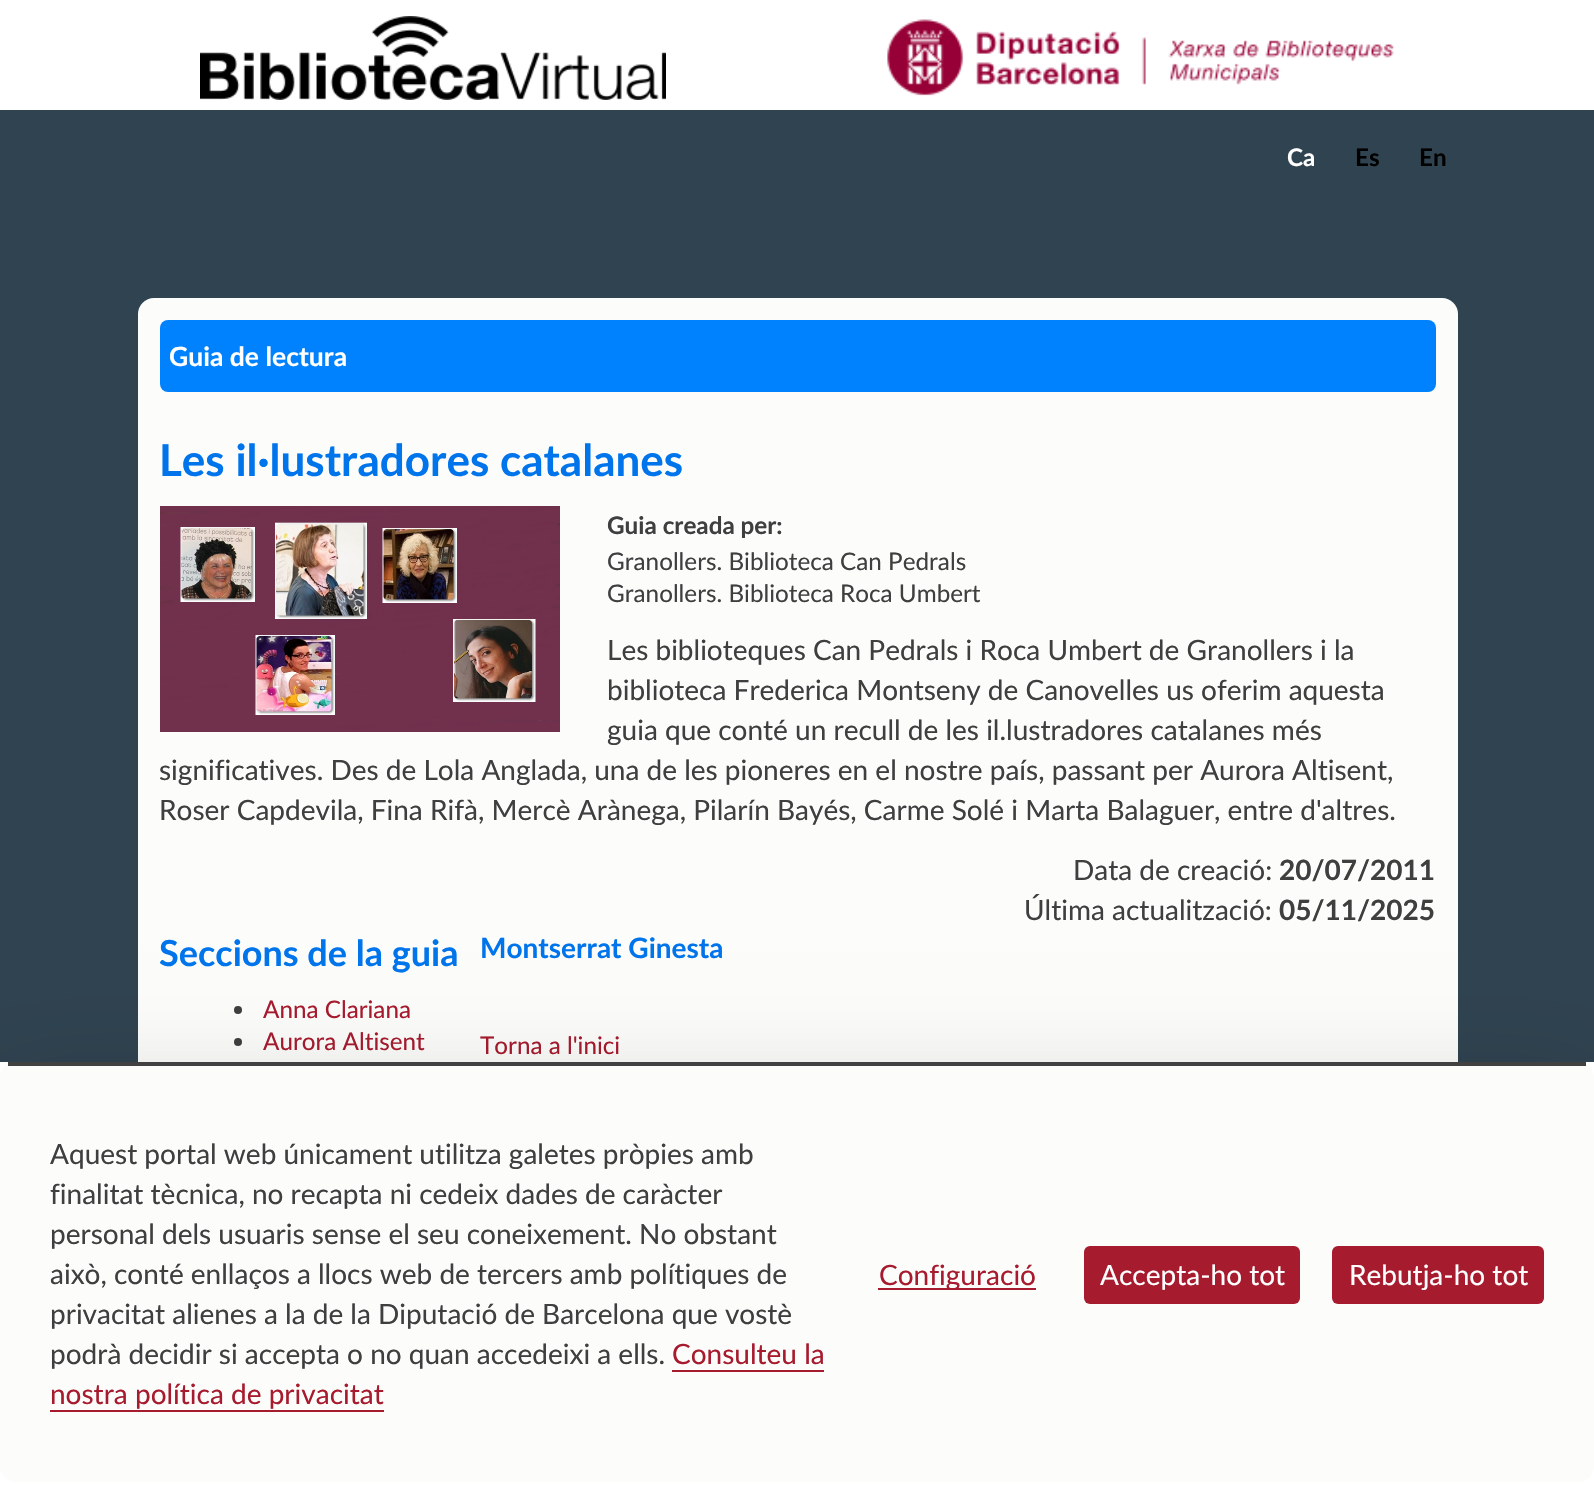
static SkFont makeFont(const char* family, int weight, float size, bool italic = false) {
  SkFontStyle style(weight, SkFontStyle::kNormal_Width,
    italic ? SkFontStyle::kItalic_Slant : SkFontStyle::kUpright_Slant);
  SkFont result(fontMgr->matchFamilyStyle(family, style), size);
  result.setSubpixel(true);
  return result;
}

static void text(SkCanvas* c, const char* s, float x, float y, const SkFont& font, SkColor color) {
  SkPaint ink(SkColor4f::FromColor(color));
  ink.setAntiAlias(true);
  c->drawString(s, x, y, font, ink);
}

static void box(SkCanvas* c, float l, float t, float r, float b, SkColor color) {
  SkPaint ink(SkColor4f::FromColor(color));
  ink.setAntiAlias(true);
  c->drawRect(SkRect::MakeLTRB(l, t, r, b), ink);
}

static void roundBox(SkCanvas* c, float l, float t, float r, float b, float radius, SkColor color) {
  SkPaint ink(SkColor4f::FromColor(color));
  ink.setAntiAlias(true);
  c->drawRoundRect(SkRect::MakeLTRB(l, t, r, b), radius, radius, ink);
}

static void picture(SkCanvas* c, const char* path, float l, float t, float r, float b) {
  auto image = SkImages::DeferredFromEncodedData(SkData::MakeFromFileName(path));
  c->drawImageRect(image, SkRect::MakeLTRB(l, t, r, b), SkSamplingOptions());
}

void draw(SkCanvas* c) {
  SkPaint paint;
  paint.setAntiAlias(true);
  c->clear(0xff304350);
  box(c, 0, 0, 1594, 110, 0xffffffff);
  picture(c, "img_01.png", 200, 16, 666, 100);
  picture(c, "img_02.png", 887, 19, 1394, 96);
  SkFont face1 = makeFont("Lato", 700, 24.25f);
  text(c, "Ca", 1287, 166, face1, 0xffffffff);
  text(c, "Es", 1355, 166, face1, 0xff000000);
  text(c, "En", 1419, 166, face1, 0xff000000);
  roundBox(c, 138, 298, 1458, 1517, 16, 0xfffcfcfb);
  roundBox(c, 160, 320, 1436, 392, 8, 0xff0082ff);
  SkFont face2 = makeFont("Lato", 700, 26.5f);
  text(c, "Guia de lectura", 169, 366, face2, 0xffffffff);
  SkFont face3 = makeFont("Lato", 700, 44);
  text(c, "Les il·lustradores catalanes", 159, 476, face3, 0xff0074eb);
  picture(c, "img_03.png", 160, 506, 560, 732);
  text(c, "Guia creada per:", 607, 534, face1, 0xff3f3f3f);
  SkFont face4 = makeFont("Lato", 400, 24.25f);
  text(c, "Granollers. Biblioteca Can Pedrals", 607, 570, face4, 0xff3f3f3f);
  text(c, "Granollers. Biblioteca Roca Umbert", 607, 602, face4, 0xff3f3f3f);
  SkFont face5 = makeFont("Lato", 400, 28);
  text(c, "Les biblioteques Can Pedrals i Roca Umbert de Granollers i la", 607, 660, face5, 0xff3f3f3f);
  text(c, "biblioteca Frederica Montseny de Canovelles us oferim aquesta", 607, 700, face5, 0xff3f3f3f);
  text(c, "guia que conté un recull de les il.lustradores catalanes més", 607, 740, face5, 0xff3f3f3f);
  text(c, "significatives. Des de Lola Anglada, una de les pioneres en el nostre país, passant per Aurora Altisent,", 159, 780, face5, 0xff3f3f3f);
  text(c, "Roser Capdevila, Fina Rifà, Mercè Arànega, Pilarín Bayés, Carme Solé i Marta Balaguer, entre d'altres.", 159, 820, face5, 0xff3f3f3f);
  text(c, "Data de creació:", 1073, 880, face5, 0xff3f3f3f);
  SkFont face6 = makeFont("Lato", 700, 28);
  text(c, "20/07/2011", 1279, 880, face6, 0xff3f3f3f);
  text(c, "Última actualització:", 1024, 920, face5, 0xff3f3f3f);
  text(c, "05/11/2025", 1279, 920, face6, 0xff3f3f3f);
  SkFont face7 = makeFont("Lato", 700, 36);
  text(c, "Seccions de la guia", 159, 966, face7, 0xff0074eb);
  paint.setColor(0xff3f3f3f);
  c->drawCircle(238, 1010, 4, paint);
  text(c, "Anna Clariana", 263, 1018, face4, 0xffa71b2e);
  c->drawCircle(238, 1042, 4, paint);
  text(c, "Aurora Altisent", 263, 1050, face4, 0xffa71b2e);
  text(c, "Montserrat Ginesta", 480, 958, face6, 0xff0074eb);
  text(c, "Torna a l'inici", 480, 1054, face4, 0xffa71b2e);
  paint.setColor(0x2e000000);
  paint.setMaskFilter(SkMaskFilter::MakeBlur(kNormal_SkBlurStyle, 48));
  c->drawRect(SkRect::MakeLTRB(0, 1094, 1594, 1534), paint);
  paint.setMaskFilter(nullptr);
  box(c, 0, 1062, 1594, 1501, 0xffffffff);
  roundBox(c, 0, 1062, 1594, 1482, 16, 0xfffcfcfb);
  box(c, 8, 1062, 1586, 1066, 0xbd000000);
  text(c, "Aquest portal web únicament utilitza galetes pròpies amb", 50, 1164, face5, 0xff3f3f3f);
  text(c, "finalitat tècnica, no recapta ni cedeix dades de caràcter", 50, 1204, face5, 0xff3f3f3f);
  text(c, "personal dels usuaris sense el seu coneixement. No obstant", 50, 1244, face5, 0xff3f3f3f);
  text(c, "això, conté enllaços a llocs web de tercers amb polítiques de", 50, 1284, face5, 0xff3f3f3f);
  text(c, "privacitat alienes a la de la Diputació de Barcelona que vostè", 50, 1324, face5, 0xff3f3f3f);
  text(c, "podrà decidir si accepta o no quan accedeixi a ells.", 50, 1364, face5, 0xff3f3f3f);
  text(c, "Consulteu la", 672, 1364, face5, 0xffa71b2e);
  box(c, 672, 1370, 824, 1372, 0xffa71b2e);
  text(c, "nostra política de privacitat", 50, 1404, face5, 0xffa71b2e);
  box(c, 50, 1410, 384, 1412, 0xffa71b2e);
  box(c, 878, 1288, 1036, 1290, 0xffa71b2e);
  text(c, "Configuració", 879, 1285, face5, 0xffa71b2e);
  roundBox(c, 1084, 1246, 1300, 1304, 6, 0xffa71b2e);
  text(c, "Accepta-ho tot", 1100, 1285, face5, 0xffffffff);
  roundBox(c, 1332, 1246, 1544, 1304, 6, 0xffa71b2e);
  text(c, "Rebutja-ho tot", 1349, 1285, face5, 0xffffffff);
}
